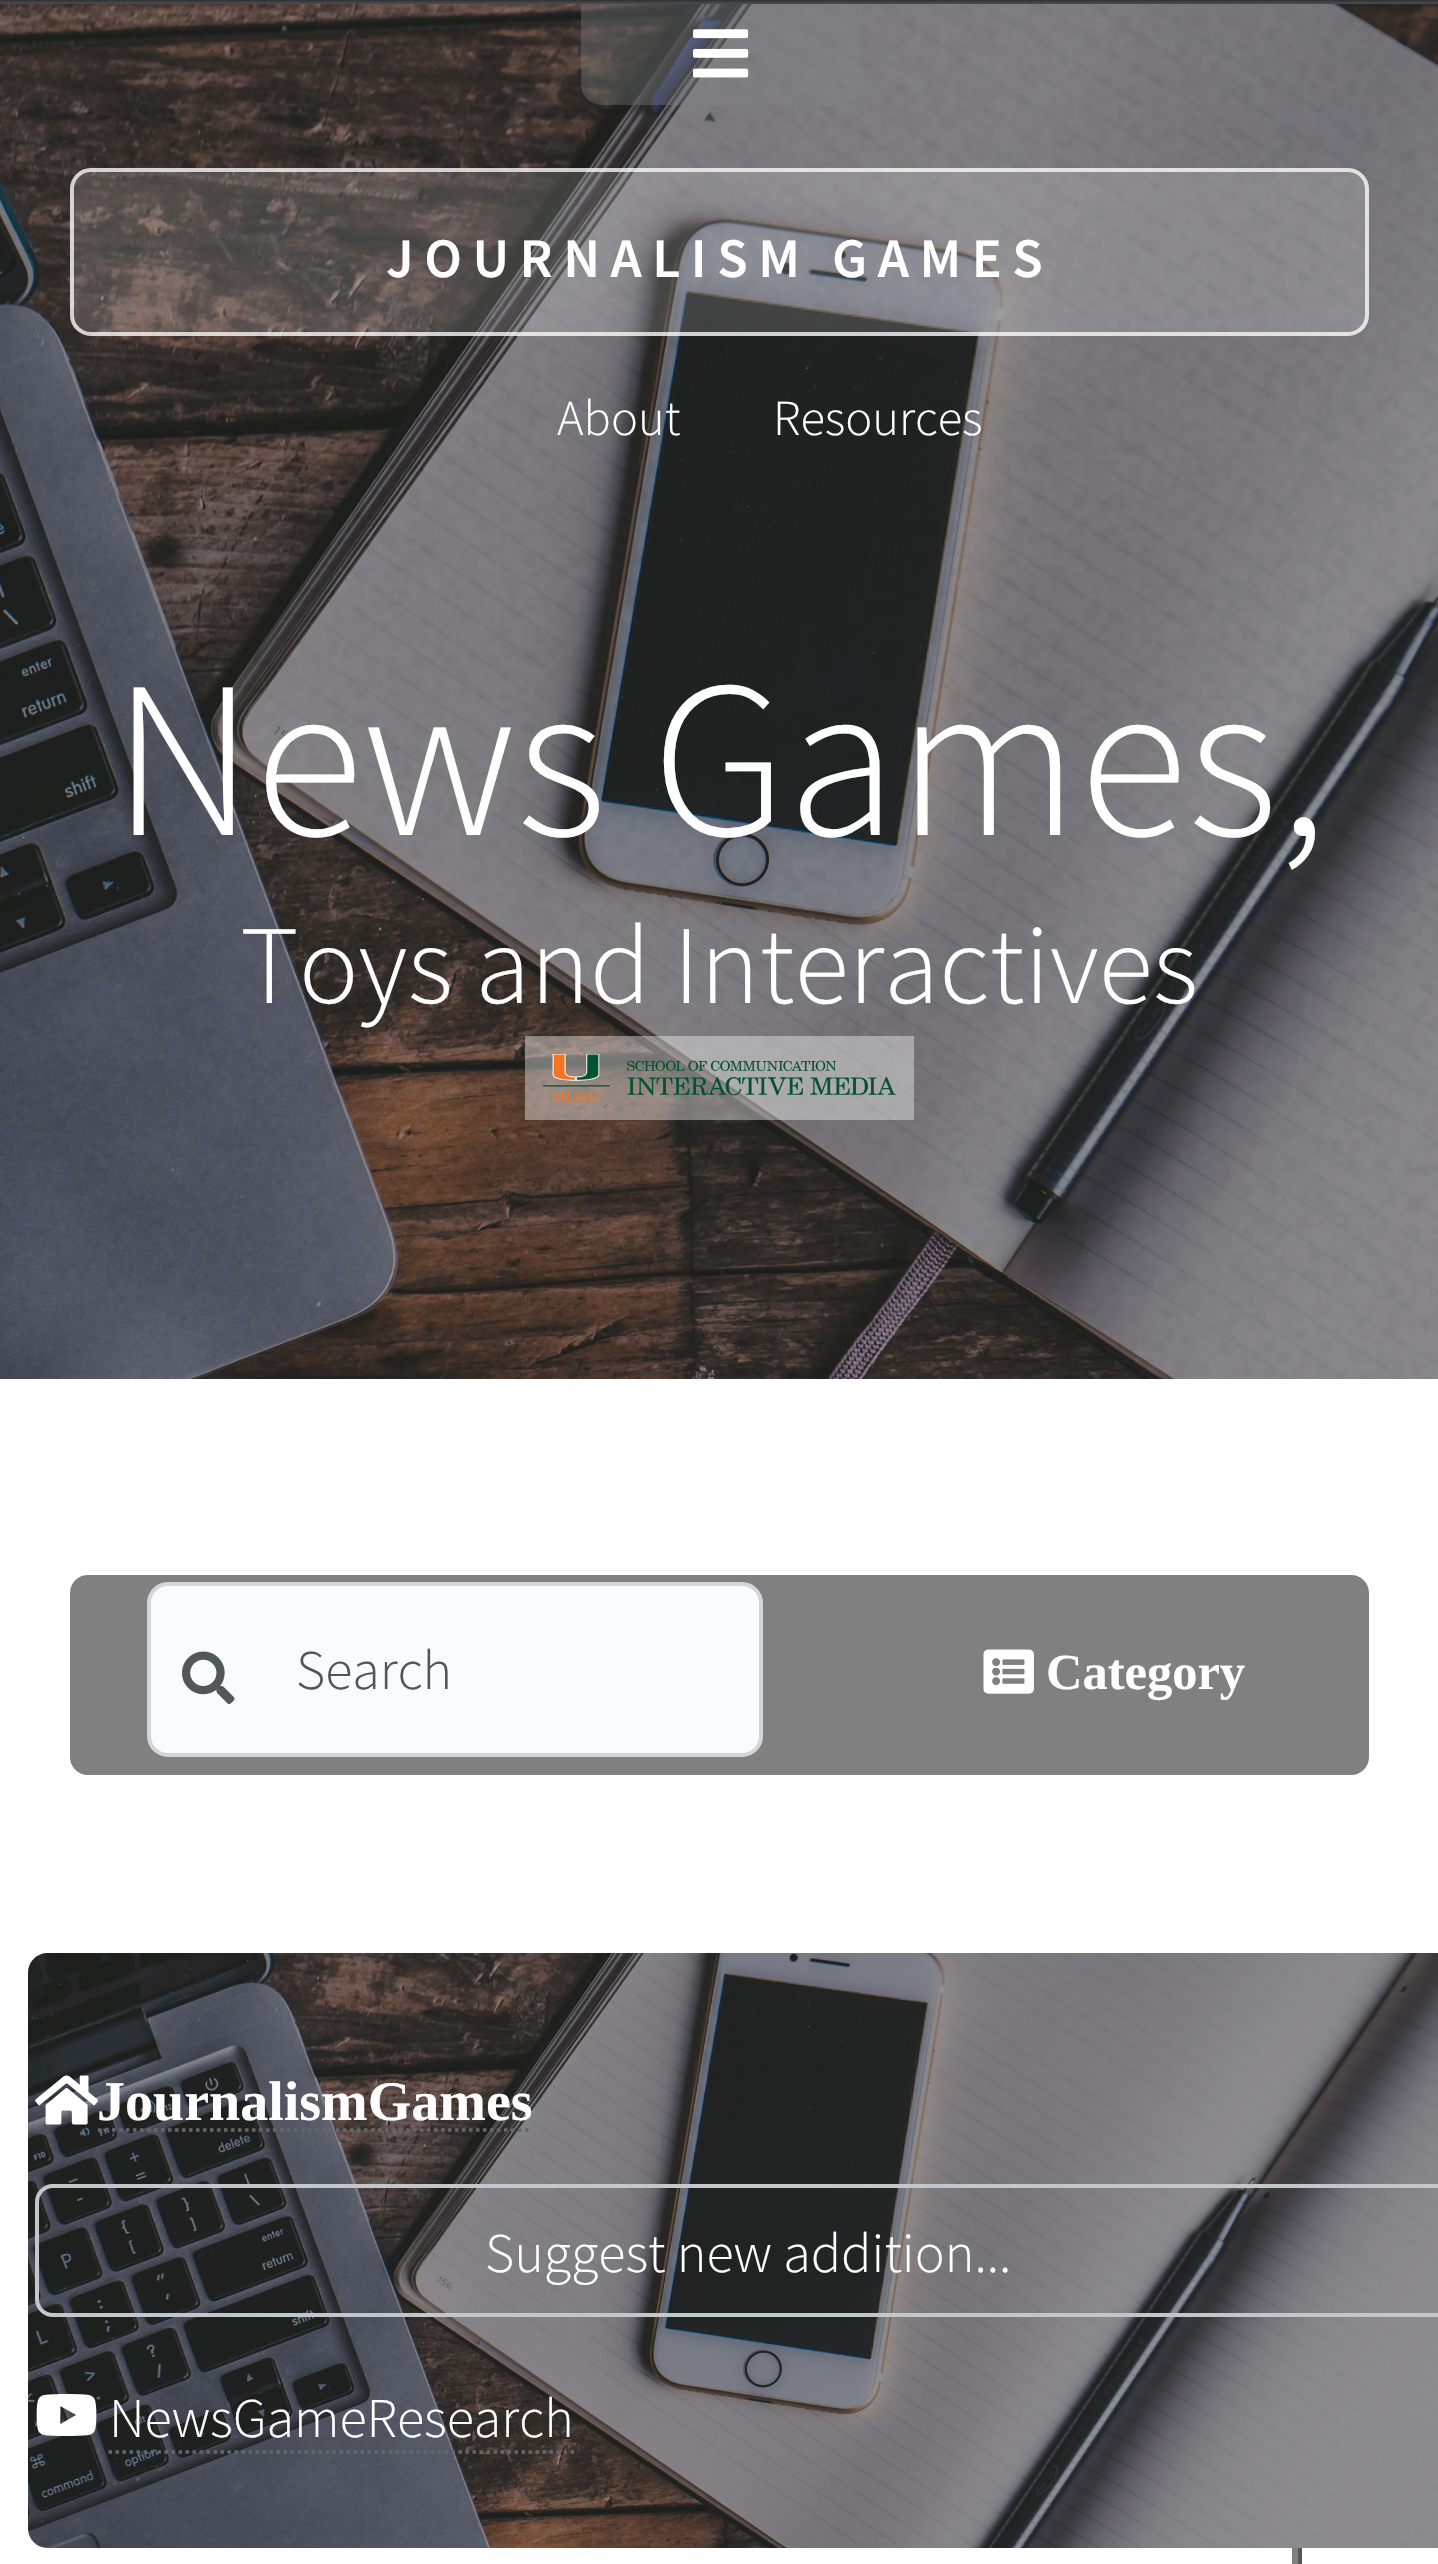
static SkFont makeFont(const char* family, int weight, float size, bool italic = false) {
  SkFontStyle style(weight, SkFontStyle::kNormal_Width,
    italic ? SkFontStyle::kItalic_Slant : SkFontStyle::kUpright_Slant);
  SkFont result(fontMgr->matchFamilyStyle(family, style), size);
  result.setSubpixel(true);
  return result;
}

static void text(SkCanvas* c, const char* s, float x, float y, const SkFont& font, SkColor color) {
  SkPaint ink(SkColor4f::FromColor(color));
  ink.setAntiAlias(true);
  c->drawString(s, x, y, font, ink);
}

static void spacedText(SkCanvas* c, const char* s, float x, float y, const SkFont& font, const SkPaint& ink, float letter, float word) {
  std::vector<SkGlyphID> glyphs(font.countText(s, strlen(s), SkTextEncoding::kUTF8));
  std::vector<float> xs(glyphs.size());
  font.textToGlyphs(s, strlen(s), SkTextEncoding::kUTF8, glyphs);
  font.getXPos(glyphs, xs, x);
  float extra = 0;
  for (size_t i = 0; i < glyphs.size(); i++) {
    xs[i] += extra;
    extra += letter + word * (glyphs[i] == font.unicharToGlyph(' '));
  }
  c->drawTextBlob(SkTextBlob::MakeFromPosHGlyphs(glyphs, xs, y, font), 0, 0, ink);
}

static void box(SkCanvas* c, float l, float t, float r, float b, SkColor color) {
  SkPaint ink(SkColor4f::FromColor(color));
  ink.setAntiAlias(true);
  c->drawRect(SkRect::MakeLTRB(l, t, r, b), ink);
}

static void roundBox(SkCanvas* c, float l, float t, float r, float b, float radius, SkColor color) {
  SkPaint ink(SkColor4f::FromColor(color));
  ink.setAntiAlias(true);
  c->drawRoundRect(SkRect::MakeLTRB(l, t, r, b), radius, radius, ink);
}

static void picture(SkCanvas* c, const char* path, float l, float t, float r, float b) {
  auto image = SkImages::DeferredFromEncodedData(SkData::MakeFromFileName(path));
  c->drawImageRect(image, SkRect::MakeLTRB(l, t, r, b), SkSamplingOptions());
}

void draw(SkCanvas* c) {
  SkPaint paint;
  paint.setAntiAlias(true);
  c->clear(0xffffffff);
  picture(c, "img_03.png", 0, 4, 1438, 1379);
  paint.setColor(0x59808488);
  c->drawPath(SkPathBuilder().moveTo(581, 0).lineTo(861, 0).lineTo(861, 84).cubicTo(861, 95.5f, 851.5f, 105, 840, 105).lineTo(602, 105).cubicTo(590.5f, 105, 581, 95.5f, 581, 84).close().detach(), paint);
  box(c, 0, 0, 1438, 4, 0xff45474a);
  picture(c, "img_01.png", 0, 0, 1438, 2);
  picture(c, "img_02.png", 693, 29, 749, 78);
  roundBox(c, 70, 168, 1369, 336, 21, 0x26ffffff);
  paint.setStyle(SkPaint::kStroke_Style);
  paint.setStrokeWidth(4);
  paint.setColor(0xbfffffff);
  c->drawRoundRect(SkRect::MakeLTRB(72, 170, 1367, 334), 19, 19, paint);
  SkFont face1 = makeFont("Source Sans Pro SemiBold", 600, 56);
  paint.setStyle(SkPaint::kFill_Style);
  paint.setColor(0xffffffff);
  spacedText(c, "JOURNALISM GAMES", 386, 277, face1, paint, 10.5f, 0);
  SkFont face2 = makeFont("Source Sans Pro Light", 300, 50.5f);
  text(c, "About", 557, 435, face2, 0xffffffff);
  text(c, "Resources", 773, 435, face2, 0xffffffff);
  SkFont face3 = makeFont("Source Sans Pro Light", 300, 224);
  text(c, "News Games,", 112, 835, face3, 0xffffffff);
  SkFont face4 = makeFont("Source Sans Pro Light", 300, 112);
  text(c, "Toys and Interactives", 240, 1003, face4, 0xffffffff);
  box(c, 525, 1036, 914, 1120, 0x66fafafa);
  picture(c, "img_04.png", 543, 1054, 896, 1103);
  roundBox(c, 70, 1575, 1369, 1775, 18, 0xff808080);
  paint.setColor(0xfff9fbfe);
  c->drawRoundRect(SkRect::MakeLTRB(149, 1584, 761, 1755), 19, 19, paint);
  paint.setStyle(SkPaint::kStroke_Style);
  paint.setColor(0xffd2d7dc);
  c->drawRoundRect(SkRect::MakeLTRB(149, 1584, 761, 1755), 19, 19, paint);
  picture(c, "img_05.png", 182, 1651, 235, 1704);
  SkFont face5 = makeFont("Source Sans Pro Light", 300, 56);
  text(c, "Search", 296, 1689, face5, 0xff555555);
  picture(c, "img_06.png", 983, 1649, 1034, 1694);
  SkFont face6 = makeFont("Liberation Serif", 700, 50.5f);
  text(c, "Category", 1046, 1689, face6, 0xffffffff);
  paint.setStyle(SkPaint::kFill_Style);
  paint.setColor(0xff52575c);
  c->drawPath(SkPathBuilder().moveTo(145, 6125).cubicTo(148, 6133, 156, 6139, 165, 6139).lineTo(1281, 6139).cubicTo(1293, 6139, 1302, 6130, 1302, 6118).lineTo(1302, 2289).cubicTo(1302, 2284, 1300, 2280, 1298, 2276).lineTo(1298, 2282).lineTo(1298, 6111).cubicTo(1298, 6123, 1289, 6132, 1278, 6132).lineTo(161, 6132).cubicTo(155, 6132, 149, 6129, 145, 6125).close().detach(), paint);
  paint.setColor(0xff808080);
  c->drawPath(SkPathBuilder(SkPathFillType::kEvenOdd).moveTo(161, 2261).lineTo(1278, 2261).cubicTo(1289, 2261, 1298, 2270, 1298, 2282).lineTo(1298, 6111).cubicTo(1298, 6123, 1289, 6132, 1278, 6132).lineTo(161, 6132).cubicTo(149, 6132, 140, 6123, 140, 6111).lineTo(140, 2282).cubicTo(140, 2270, 149, 2261, 161, 2261).close().moveTo(161, 2268).lineTo(1278, 2268).cubicTo(1285, 2268, 1292, 2274, 1292, 2282).lineTo(1292, 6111).cubicTo(1292, 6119, 1285, 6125, 1278, 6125).lineTo(161, 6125).cubicTo(149, 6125, 140, 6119, 140, 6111).lineTo(140, 2282).cubicTo(140, 2274, 149, 2268, 161, 2268).close().detach(), paint);
  picture(c, "img_07.png", 28, 1953, 1438, 2548);
  picture(c, "img_08.png", 35, 2075, 99, 2125);
  SkFont face7 = makeFont("Liberation Serif", 700, 56);
  text(c, "JournalismGames", 97, 2120, face7, 0xffffffff);
  paint.setStyle(SkPaint::kStroke_Style);
  paint.setStrokeWidth(3.5f);
  paint.setColor(0xff62676c);
  paint.setPathEffect(SkDashPathEffect::Make({{3.5f, 3.5f}}, 0));
  c->drawPath(SkPathBuilder().moveTo(98, 2130).lineTo(532, 2130).detach(), paint);
  paint.setPathEffect(nullptr);
  paint.setStrokeWidth(4);
  paint.setColor(0xffc2c7cc);
  c->drawRoundRect(SkRect::MakeLTRB(37, 2186, 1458, 2315), 16, 16, paint);
  text(c, "Suggest new addition...", 485, 2272, face5, 0xffffffff);
  picture(c, "img_09.png", 36, 2394, 97, 2436);
  text(c, "NewsGameResearch", 109, 2437, face5, 0xffffffff);
  paint.setStrokeWidth(3.5f);
  paint.setColor(0xff62676c);
  paint.setPathEffect(SkDashPathEffect::Make({{3.5f, 3.5f}}, 0));
  c->drawPath(SkPathBuilder().moveTo(108.5f, 2452).lineTo(574, 2452).detach(), paint);
  paint.setPathEffect(nullptr);
}
